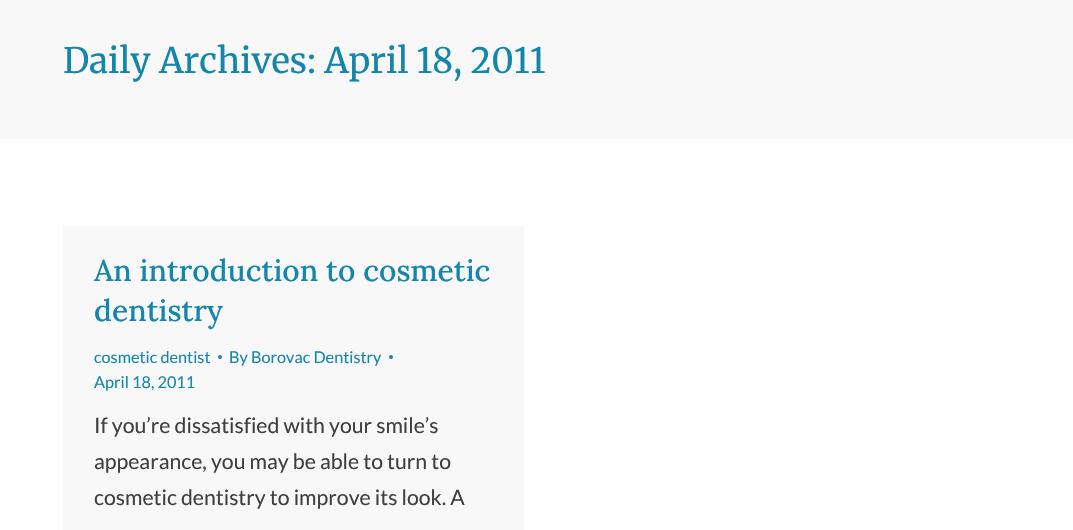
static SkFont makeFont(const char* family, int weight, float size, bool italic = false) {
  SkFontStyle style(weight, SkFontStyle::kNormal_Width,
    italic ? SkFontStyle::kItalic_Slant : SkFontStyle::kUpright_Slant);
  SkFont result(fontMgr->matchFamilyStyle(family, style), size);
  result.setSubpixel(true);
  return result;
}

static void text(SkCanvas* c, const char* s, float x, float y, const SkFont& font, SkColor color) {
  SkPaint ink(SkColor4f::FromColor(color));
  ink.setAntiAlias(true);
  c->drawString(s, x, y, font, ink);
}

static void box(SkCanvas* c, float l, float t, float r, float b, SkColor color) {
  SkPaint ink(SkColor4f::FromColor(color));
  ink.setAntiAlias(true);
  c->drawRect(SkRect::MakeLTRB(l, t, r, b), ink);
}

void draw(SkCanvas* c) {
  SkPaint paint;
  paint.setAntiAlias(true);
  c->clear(0xffffffff);
  box(c, 0, 0, 1073, 139, 0xfff8f8f9);
  SkFont face1 = makeFont("Merriweather", 400, 35);
  text(c, "Daily Archives: April 18, 2011", 63, 73, face1, 0xff1486ac);
  box(c, 63, 226, 524, 530, 0xfff8f8f9);
  SkFont face2 = makeFont("Lora", 500, 30);
  text(c, "An introduction to cosmetic", 94, 281, face2, 0xff1486ac);
  text(c, "dentistry", 94, 321, face2, 0xff1486ac);
  SkFont face3 = makeFont("Lato", 400, 16.25f);
  text(c, "cosmetic dentist", 94, 363, face3, 0xff1486ac);
  paint.setColor(0xff1486ac);
  c->drawCircle(220, 357, 2, paint);
  text(c, "By Borovac Dentistry", 229, 363, face3, 0xff1486ac);
  c->drawCircle(391, 357, 2, paint);
  text(c, "April 18, 2011", 94, 388, face3, 0xff1486ac);
  SkFont face4 = makeFont("Lato", 400, 21.25f);
  text(c, "If you’re dissatisfied with your smile’s", 94, 433, face4, 0xff3f3f3f);
  text(c, "appearance, you may be able to turn to", 94, 469, face4, 0xff3f3f3f);
  text(c, "cosmetic dentistry to improve its look. A", 94, 505, face4, 0xff3f3f3f);
}
